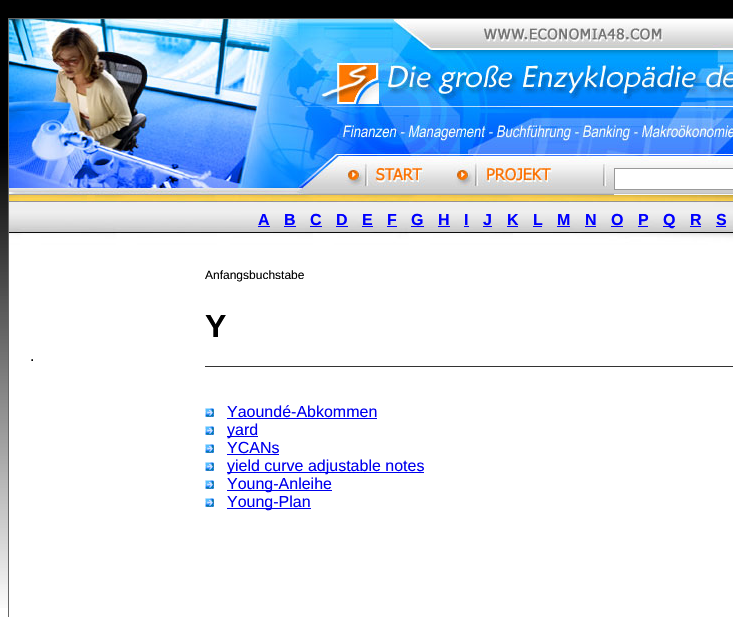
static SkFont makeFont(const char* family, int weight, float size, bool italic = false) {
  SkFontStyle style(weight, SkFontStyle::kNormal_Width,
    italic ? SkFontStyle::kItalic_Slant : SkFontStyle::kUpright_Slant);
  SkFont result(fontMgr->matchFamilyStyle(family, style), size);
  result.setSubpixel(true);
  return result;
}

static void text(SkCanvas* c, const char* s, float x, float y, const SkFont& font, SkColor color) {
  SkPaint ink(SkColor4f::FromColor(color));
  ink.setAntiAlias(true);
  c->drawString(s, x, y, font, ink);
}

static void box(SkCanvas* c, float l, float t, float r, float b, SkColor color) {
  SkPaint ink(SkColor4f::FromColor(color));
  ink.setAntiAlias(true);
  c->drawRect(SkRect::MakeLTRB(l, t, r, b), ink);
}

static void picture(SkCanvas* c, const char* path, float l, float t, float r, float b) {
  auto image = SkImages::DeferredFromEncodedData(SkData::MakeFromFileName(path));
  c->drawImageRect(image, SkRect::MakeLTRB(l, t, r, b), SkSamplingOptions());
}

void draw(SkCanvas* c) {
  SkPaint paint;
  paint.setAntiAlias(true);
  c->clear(0xffffffff);
  picture(c, "img_01.png", 0, 0, 733, 608);
  paint.setStyle(SkPaint::kStroke_Style);
  paint.setStrokeWidth(1);
  paint.setColor(0xff666666);
  c->drawRect(SkRect::MakeLTRB(8.5f, 18.5f, 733.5f, 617.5f), paint);
  picture(c, "img_02.png", 9, 19, 733, 163);
  picture(c, "img_03.png", 9, 163, 369, 195);
  picture(c, "img_04.png", 369, 163, 452, 195);
  picture(c, "img_05.png", 452, 163, 480, 195);
  picture(c, "img_06.png", 480, 163, 587, 195);
  picture(c, "img_07.png", 587, 163, 614, 195);
  picture(c, "img_08.png", 614, 163, 733, 195);
  paint.setStyle(SkPaint::kFill_Style);
  paint.setColor(0xffffffff);
  c->drawRect(SkRect::MakeLTRB(614.5f, 168.5f, 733.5f, 189.5f), paint);
  paint.setStyle(SkPaint::kStroke_Style);
  paint.setColor(0xff999999);
  c->drawRect(SkRect::MakeLTRB(614.5f, 168.5f, 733.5f, 189.5f), paint);
  picture(c, "img_09.png", 9, 195, 733, 245);
  picture(c, "img_10.png", 87, 195, 95, 203);
  SkFont face1 = makeFont("Liberation Sans", 700, 16);
  text(c, "A", 258, 225, face1, 0xff0000ff);
  box(c, 258, 226, 270, 227, 0xff0000ff);
  text(c, "B", 284, 225, face1, 0xff0000ff);
  box(c, 284, 226, 296, 227, 0xff0000ff);
  text(c, "C", 310, 225, face1, 0xff0000ff);
  box(c, 310, 226, 322, 227, 0xff0000ff);
  text(c, "D", 336, 225, face1, 0xff0000ff);
  box(c, 336, 226, 348, 227, 0xff0000ff);
  text(c, "E", 362, 225, face1, 0xff0000ff);
  box(c, 362, 226, 373, 227, 0xff0000ff);
  text(c, "F", 387, 225, face1, 0xff0000ff);
  box(c, 387, 226, 397, 227, 0xff0000ff);
  text(c, "G", 411, 225, face1, 0xff0000ff);
  box(c, 411, 226, 424, 227, 0xff0000ff);
  text(c, "H", 438, 225, face1, 0xff0000ff);
  box(c, 438, 226, 450, 227, 0xff0000ff);
  text(c, "I", 464, 225, face1, 0xff0000ff);
  box(c, 464, 226, 469, 227, 0xff0000ff);
  text(c, "J", 483, 225, face1, 0xff0000ff);
  box(c, 483, 226, 492, 227, 0xff0000ff);
  text(c, "K", 507, 225, face1, 0xff0000ff);
  box(c, 507, 226, 518, 227, 0xff0000ff);
  text(c, "L", 533, 225, face1, 0xff0000ff);
  box(c, 533, 226, 542, 227, 0xff0000ff);
  text(c, "M", 557, 225, face1, 0xff0000ff);
  box(c, 557, 226, 570, 227, 0xff0000ff);
  text(c, "N", 585, 225, face1, 0xff0000ff);
  box(c, 585, 226, 596, 227, 0xff0000ff);
  text(c, "O", 611, 225, face1, 0xff0000ff);
  box(c, 611, 226, 623, 227, 0xff0000ff);
  text(c, "P", 638, 225, face1, 0xff0000ff);
  box(c, 638, 226, 648, 227, 0xff0000ff);
  box(c, 663, 226, 675, 227, 0xff0000ff);
  text(c, "Q", 663, 225, face1, 0xff0000ff);
  text(c, "R", 690, 225, face1, 0xff0000ff);
  box(c, 690, 226, 701, 227, 0xff0000ff);
  text(c, "S", 716, 225, face1, 0xff0000ff);
  box(c, 716, 226, 726, 227, 0xff0000ff);
  box(c, 9, 245, 733, 608, 0xffffffff);
  SkFont face2 = makeFont("Liberation Sans", 400, 16);
  text(c, ".", 30, 361, face2, 0xff000000);
  SkFont face3 = makeFont("Liberation Sans", 400, 12);
  text(c, "Anfangsbuchstabe", 205, 279, face3, 0xff000000);
  SkFont face4 = makeFont("Liberation Sans", 700, 32);
  text(c, "Y", 205, 337, face4, 0xff000000);
  box(c, 205, 366, 733, 367, 0xff333333);
  picture(c, "img_11.png", 205, 408, 214, 417);
  text(c, "Yaoundé-Abkommen", 227, 417, face2, 0xff0000ee);
  box(c, 227, 418, 377, 419, 0xff0000ee);
  picture(c, "img_11.png", 205, 426, 214, 435);
  box(c, 227, 436, 258, 437, 0xff0000ee);
  text(c, "yard", 227, 435, face2, 0xff0000ee);
  picture(c, "img_11.png", 205, 444, 214, 453);
  text(c, "YCANs", 227, 453, face2, 0xff0000ee);
  box(c, 227, 454, 279, 455, 0xff0000ee);
  picture(c, "img_11.png", 205, 462, 214, 471);
  box(c, 227, 472, 424, 473, 0xff0000ee);
  text(c, "yield curve adjustable notes", 227, 471, face2, 0xff0000ee);
  picture(c, "img_11.png", 205, 480, 214, 489);
  box(c, 227, 490, 332, 491, 0xff0000ee);
  text(c, "Young-Anleihe", 227, 489, face2, 0xff0000ee);
  picture(c, "img_11.png", 205, 498, 214, 507);
  box(c, 227, 508, 311, 509, 0xff0000ee);
  text(c, "Young-Plan", 227, 507, face2, 0xff0000ee);
}
